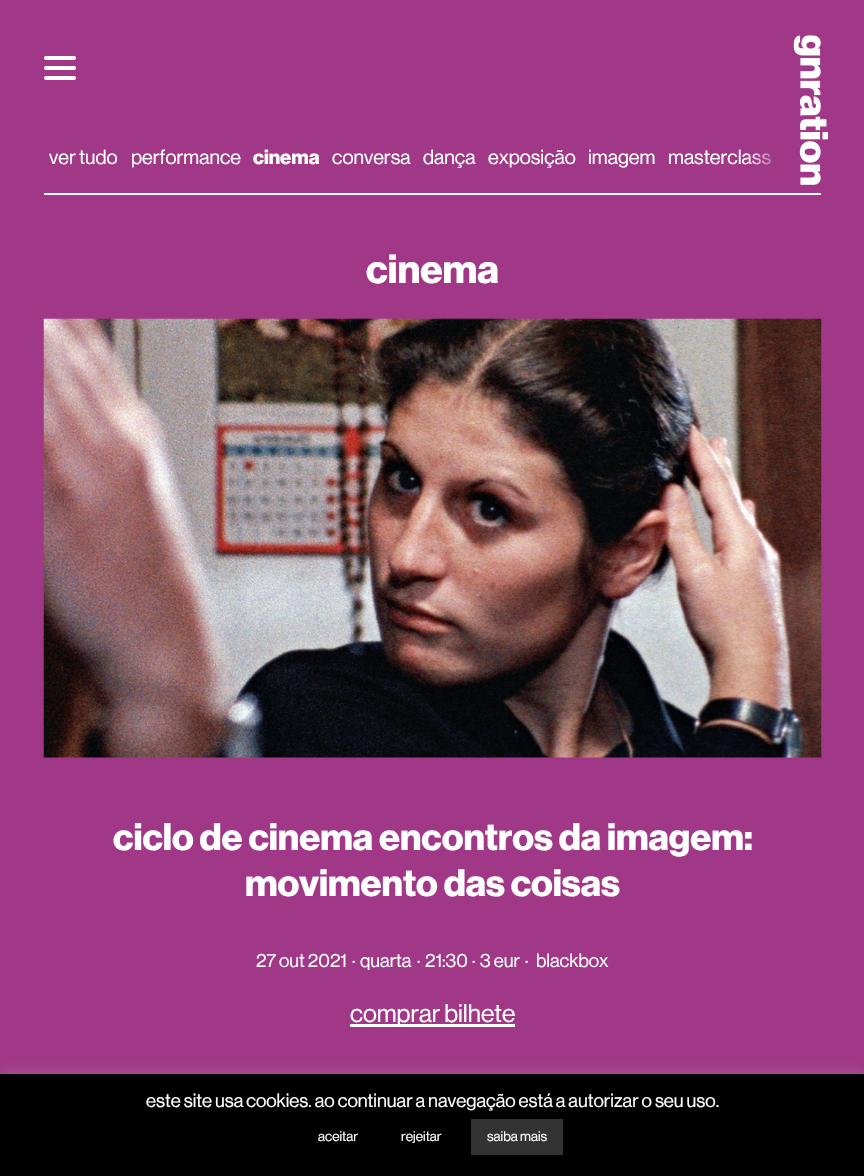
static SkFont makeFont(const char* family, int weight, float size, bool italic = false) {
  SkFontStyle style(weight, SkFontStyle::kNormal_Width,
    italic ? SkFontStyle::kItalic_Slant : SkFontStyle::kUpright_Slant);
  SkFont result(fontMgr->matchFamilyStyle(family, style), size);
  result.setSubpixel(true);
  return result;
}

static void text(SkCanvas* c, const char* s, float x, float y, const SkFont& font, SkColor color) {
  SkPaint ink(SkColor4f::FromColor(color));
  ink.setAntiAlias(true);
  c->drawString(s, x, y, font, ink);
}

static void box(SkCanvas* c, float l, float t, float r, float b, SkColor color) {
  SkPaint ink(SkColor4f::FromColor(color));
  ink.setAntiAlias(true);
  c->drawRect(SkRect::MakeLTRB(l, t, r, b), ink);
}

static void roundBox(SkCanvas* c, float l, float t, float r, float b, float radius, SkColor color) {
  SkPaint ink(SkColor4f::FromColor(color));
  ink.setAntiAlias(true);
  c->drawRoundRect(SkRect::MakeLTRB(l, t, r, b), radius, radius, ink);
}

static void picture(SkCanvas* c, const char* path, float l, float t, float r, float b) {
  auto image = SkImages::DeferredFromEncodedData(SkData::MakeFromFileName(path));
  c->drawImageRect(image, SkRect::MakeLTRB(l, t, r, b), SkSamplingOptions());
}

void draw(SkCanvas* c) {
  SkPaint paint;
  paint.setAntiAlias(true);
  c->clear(0xffa03787);
  roundBox(c, 44, 66, 76, 70, 2, 0xffffffff);
  roundBox(c, 44, 56, 76, 60, 2, 0xffffffff);
  roundBox(c, 44, 76, 76, 80, 2, 0xffffffff);
  picture(c, "img_01.png", 793, 35, 828, 185);
  SkFont face1 = makeFont("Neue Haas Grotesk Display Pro", 400, 20);
  text(c, "ver tudo", 49, 164, face1, 0xffffffff);
  {
    const SkColor colors[] = {0xffa03787, 0x00a03787};
    const float stops[] = {0.5f, 1};
    const SkPoint ends[] = {{44, 166}, {50, 166}};
    paint.setShader(SkGradientShader::MakeLinear(ends, colors, stops, 2, SkTileMode::kClamp));
    paint.setAlpha(255);
  }
  c->drawRect(SkRect::MakeLTRB(49, 145, 50, 155), paint);
  box(c, 44, 193, 821, 195, 0xffffffff);
  text(c, "performance", 131, 164, face1, 0xffffffff);
  SkFont face2 = makeFont("Neue Haas Grotesk Display Pro", 700, 20);
  text(c, "cinema", 253, 164, face2, 0xffffffff);
  text(c, "conversa", 332, 164, face1, 0xffffffff);
  text(c, "dança", 423, 164, face1, 0xffffffff);
  text(c, "exposição", 488, 164, face1, 0xffffffff);
  text(c, "imagem", 588, 164, face1, 0xffffffff);
  text(c, "masterclass", 668, 164, face1, 0xffffffff);
  {
    const SkColor colors[] = {0xffa03787, 0x00a03787};
    const float stops[] = {0.5f, 1};
    const SkPoint ends[] = {{821, 166}, {746, 166}};
    paint.setShader(SkGradientShader::MakeLinear(ends, colors, stops, 2, SkTileMode::kClamp));
    paint.setAlpha(255);
  }
  c->drawRect(SkRect::MakeLTRB(747, 153, 771, 165), paint);
  SkFont face3 = makeFont("Neue Haas Grotesk Display Pro", 700, 40);
  text(c, "cinema", 366, 283, face3, 0xffffffff);
  picture(c, "img_02.png", 43, 318, 822, 758);
  SkFont face4 = makeFont("Neue Haas Grotesk Display Pro", 700, 37.5f);
  text(c, "ciclo de cinema encontros da imagem:", 113, 850, face4, 0xffffffff);
  text(c, "movimento das coisas", 245, 896, face4, 0xffffffff);
  SkFont face5 = makeFont("Neue Haas Grotesk Display Pro", 400, 18.75f);
  text(c, "27 out 2021", 256, 967, face5, 0xffffffff);
  SkFont face6 = makeFont("Liberation Sans", 400, 18.75f);
  text(c, "∙", 351, 967, face6, 0xffffffff);
  text(c, "quarta", 360, 967, face5, 0xffffffff);
  text(c, "∙", 416, 967, face6, 0xffffffff);
  text(c, "21:30", 425, 967, face5, 0xffffffff);
  text(c, "∙", 471, 967, face6, 0xffffffff);
  text(c, "3 eur", 480, 967, face5, 0xffffffff);
  text(c, "∙", 524, 967, face6, 0xffffffff);
  text(c, "blackbox", 536, 967, face5, 0xffffffff);
  box(c, 350, 1024, 515, 1027, 0xffffffff);
  SkFont face7 = makeFont("Neue Haas Grotesk Display Pro", 400, 25);
  text(c, "comprar bilhete", 350, 1022, face7, 0xffffffff);
  paint.setShader(nullptr);
  paint.setColor(0x4dacabab);
  paint.setMaskFilter(SkMaskFilter::MakeBlur(kNormal_SkBlurStyle, 6));
  c->drawRect(SkRect::MakeLTRB(0, 1073, 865, 1175), paint);
  paint.setMaskFilter(nullptr);
  box(c, 0, 1074, 864, 1176, 0xff000000);
  text(c, "este site usa cookies. ao continuar a navegação está a autorizar o seu uso.", 146, 1107, face5, 0xffffffff);
  SkFont face8 = makeFont("Neue Haas Grotesk Display Pro", 400, 13.75f);
  text(c, "aceitar", 318, 1141, face8, 0xffffffff);
  text(c, "rejeitar", 401, 1141, face8, 0xffffffff);
  box(c, 471, 1119, 563, 1155, 0xff333333);
  text(c, "saiba mais", 487, 1141, face8, 0xffffffff);
}
